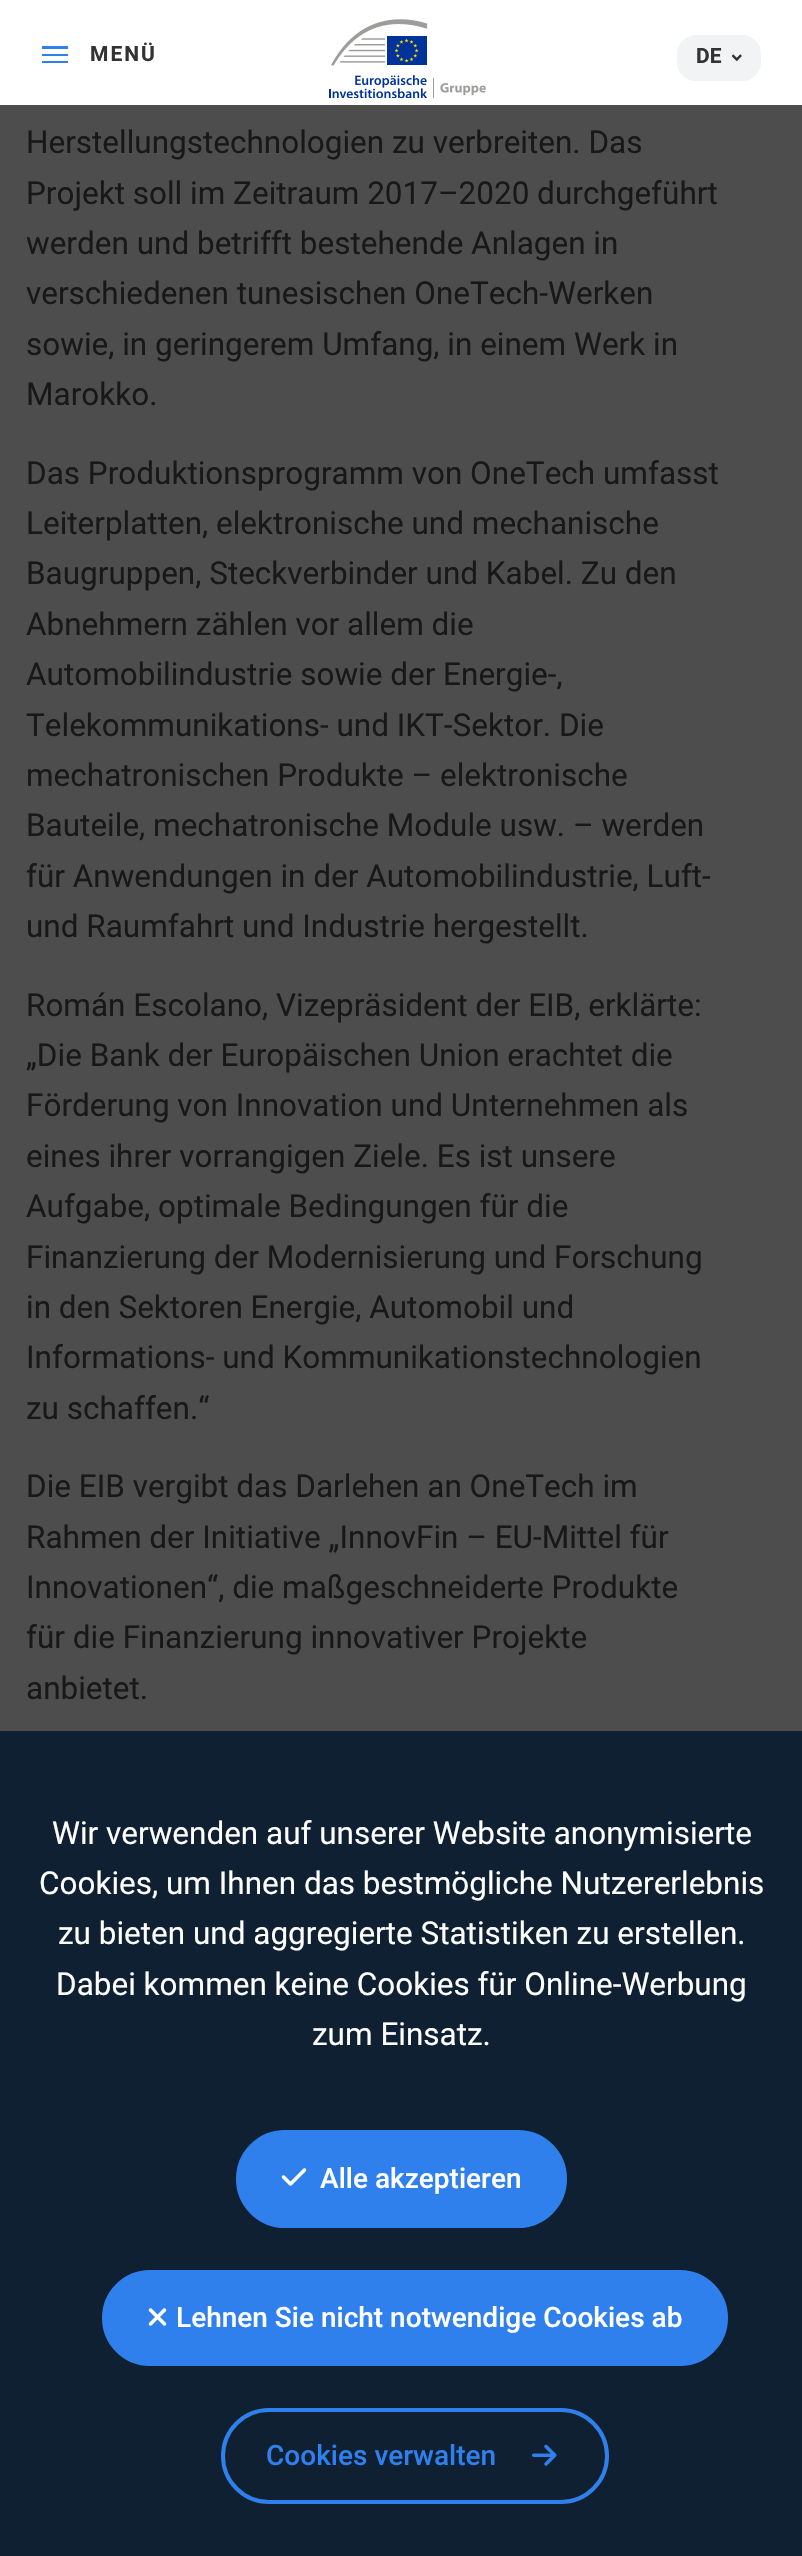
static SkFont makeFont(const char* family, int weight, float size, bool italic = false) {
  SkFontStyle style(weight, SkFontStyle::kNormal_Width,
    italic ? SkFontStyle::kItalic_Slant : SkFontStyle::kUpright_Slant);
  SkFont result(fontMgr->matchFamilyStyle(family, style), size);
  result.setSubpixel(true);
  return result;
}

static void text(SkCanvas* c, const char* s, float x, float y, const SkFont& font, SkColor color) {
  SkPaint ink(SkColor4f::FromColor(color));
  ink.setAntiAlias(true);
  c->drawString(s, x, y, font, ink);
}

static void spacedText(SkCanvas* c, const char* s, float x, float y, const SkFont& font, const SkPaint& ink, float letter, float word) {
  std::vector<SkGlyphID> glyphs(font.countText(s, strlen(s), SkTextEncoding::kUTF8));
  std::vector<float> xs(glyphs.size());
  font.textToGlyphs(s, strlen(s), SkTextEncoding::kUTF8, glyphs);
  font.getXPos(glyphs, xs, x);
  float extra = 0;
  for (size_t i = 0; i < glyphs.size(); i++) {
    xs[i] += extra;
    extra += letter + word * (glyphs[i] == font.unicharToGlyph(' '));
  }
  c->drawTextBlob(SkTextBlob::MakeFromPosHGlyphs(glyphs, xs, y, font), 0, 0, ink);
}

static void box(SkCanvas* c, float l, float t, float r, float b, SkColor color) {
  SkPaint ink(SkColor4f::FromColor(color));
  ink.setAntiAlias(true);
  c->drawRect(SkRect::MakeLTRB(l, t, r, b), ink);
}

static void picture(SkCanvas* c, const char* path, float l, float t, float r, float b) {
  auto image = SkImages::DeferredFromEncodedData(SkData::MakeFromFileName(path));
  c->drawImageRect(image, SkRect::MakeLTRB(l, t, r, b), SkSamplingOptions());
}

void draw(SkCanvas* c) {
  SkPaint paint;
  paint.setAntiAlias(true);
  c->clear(0xff4d4d4d);
  box(c, 0, 0, 802, 105, 0xffffffff);
  box(c, 42, 46, 68, 49, 0xff2f80ed);
  SkFont face1 = makeFont("Roboto", 700, 21);
  paint.setColor(0xff333333);
  spacedText(c, "MENÜ", 90, 61, face1, paint, 2, 0);
  box(c, 42, 54, 68, 56, 0xff2f80ed);
  box(c, 42, 61, 68, 63, 0xff2f80ed);
  picture(c, "img_01.png", 329, 19, 486, 98);
  paint.setColor(0xfff1f3f5);
  c->drawRoundRect(SkRect::MakeLTRB(678, 36, 760, 80), 18, 18, paint);
  paint.setStyle(SkPaint::kStroke_Style);
  paint.setStrokeWidth(2);
  c->drawRoundRect(SkRect::MakeLTRB(678, 36, 760, 80), 18, 18, paint);
  text(c, "DE", 696, 63, face1, 0xff333333);
  picture(c, "img_02.png", 732, 54, 742, 61);
  SkFont face2 = makeFont("Roboto", 400, 31.5f);
  text(c, "Herstellungstechnologien zu verbreiten. Das", 26, 153, face2, 0xff181818);
  text(c, "Projekt soll im Zeitraum 2017–2020 durchgeführt", 26, 204, face2, 0xff181818);
  text(c, "werden und betrifft bestehende Anlagen in", 26, 254, face2, 0xff181818);
  text(c, "verschiedenen tunesischen OneTech-Werken", 26, 304, face2, 0xff181818);
  text(c, "sowie, in geringerem Umfang, in einem Werk in", 26, 355, face2, 0xff181818);
  text(c, "Marokko.", 26, 405, face2, 0xff181818);
  text(c, "Das Produktionsprogramm von OneTech umfasst", 26, 484, face2, 0xff181818);
  text(c, "Leiterplatten, elektronische und mechanische", 26, 534, face2, 0xff181818);
  text(c, "Baugruppen, Steckverbinder und Kabel. Zu den", 26, 584, face2, 0xff181818);
  text(c, "Abnehmern zählen vor allem die", 26, 635, face2, 0xff181818);
  text(c, "Automobilindustrie sowie der Energie-,", 26, 685, face2, 0xff181818);
  text(c, "Telekommunikations- und IKT-Sektor. Die", 26, 736, face2, 0xff181818);
  text(c, "mechatronischen Produkte – elektronische", 26, 786, face2, 0xff181818);
  text(c, "Bauteile, mechatronische Module usw. – werden", 26, 836, face2, 0xff181818);
  text(c, "für Anwendungen in der Automobilindustrie, Luft-", 26, 887, face2, 0xff181818);
  text(c, "und Raumfahrt und Industrie hergestellt.", 26, 937, face2, 0xff181818);
  text(c, "Román Escolano, Vizepräsident der EIB, erklärte:", 26, 1016, face2, 0xff181818);
  text(c, "„Die Bank der Europäischen Union erachtet die", 26, 1066, face2, 0xff181818);
  text(c, "Förderung von Innovation und Unternehmen als", 26, 1116, face2, 0xff181818);
  text(c, "eines ihrer vorrangigen Ziele. Es ist unsere", 26, 1167, face2, 0xff181818);
  text(c, "Aufgabe, optimale Bedingungen für die", 26, 1217, face2, 0xff181818);
  text(c, "Finanzierung der Modernisierung und Forschung", 26, 1268, face2, 0xff181818);
  text(c, "in den Sektoren Energie, Automobil und", 26, 1318, face2, 0xff181818);
  text(c, "Informations- und Kommunikationstechnologien", 26, 1368, face2, 0xff181818);
  text(c, "zu schaffen.“", 26, 1419, face2, 0xff181818);
  text(c, "Die EIB vergibt das Darlehen an OneTech im", 26, 1497, face2, 0xff181818);
  text(c, "Rahmen der Initiative „InnovFin – EU-Mittel für", 26, 1548, face2, 0xff181818);
  text(c, "Innovationen“, die maßgeschneiderte Produkte", 26, 1598, face2, 0xff181818);
  text(c, "für die Finanzierung innovativer Projekte", 26, 1648, face2, 0xff181818);
  text(c, "anbietet.", 26, 1699, face2, 0xff181818);
  box(c, 0, 1731, 802, 2556, 0xff0e2031);
  text(c, "Wir verwenden auf unserer Website anonymisierte", 52, 1844, face2, 0xffffffff);
  text(c, "Cookies, um Ihnen das bestmögliche Nutzererlebnis", 39, 1894, face2, 0xffffffff);
  text(c, "zu bieten und aggregierte Statistiken zu erstellen.", 58, 1944, face2, 0xffffffff);
  text(c, "Dabei kommen keine Cookies für Online-Werbung", 56, 1995, face2, 0xffffffff);
  text(c, "zum Einsatz.", 312, 2045, face2, 0xffffffff);
  paint.setStyle(SkPaint::kFill_Style);
  paint.setColor(0xff2f80ed);
  c->drawRoundRect(SkRect::MakeLTRB(238, 2132, 565, 2226), 47, 47, paint);
  paint.setStyle(SkPaint::kStroke_Style);
  paint.setStrokeWidth(4);
  c->drawRoundRect(SkRect::MakeLTRB(238, 2132, 565, 2226), 47, 47, paint);
  picture(c, "img_03.png", 281, 2168, 307, 2186);
  SkFont face3 = makeFont("Roboto", 500, 28);
  text(c, "Alle akzeptieren", 320, 2188, face3, 0xffffffff);
  paint.setStyle(SkPaint::kFill_Style);
  c->drawRoundRect(SkRect::MakeLTRB(104, 2272, 726, 2364), 46, 46, paint);
  paint.setStyle(SkPaint::kStroke_Style);
  c->drawRoundRect(SkRect::MakeLTRB(104, 2272, 726, 2364), 46, 46, paint);
  picture(c, "img_04.png", 148, 2308, 167, 2326);
  text(c, "Lehnen Sie nicht notwendige Cookies ab", 176, 2327, face3, 0xffffffff);
  c->drawRoundRect(SkRect::MakeLTRB(223, 2410, 607, 2502), 46, 46, paint);
  text(c, "Cookies verwalten", 266, 2465, face3, 0xff2f80ed);
  picture(c, "img_05.png", 532, 2444, 557, 2466);
}
